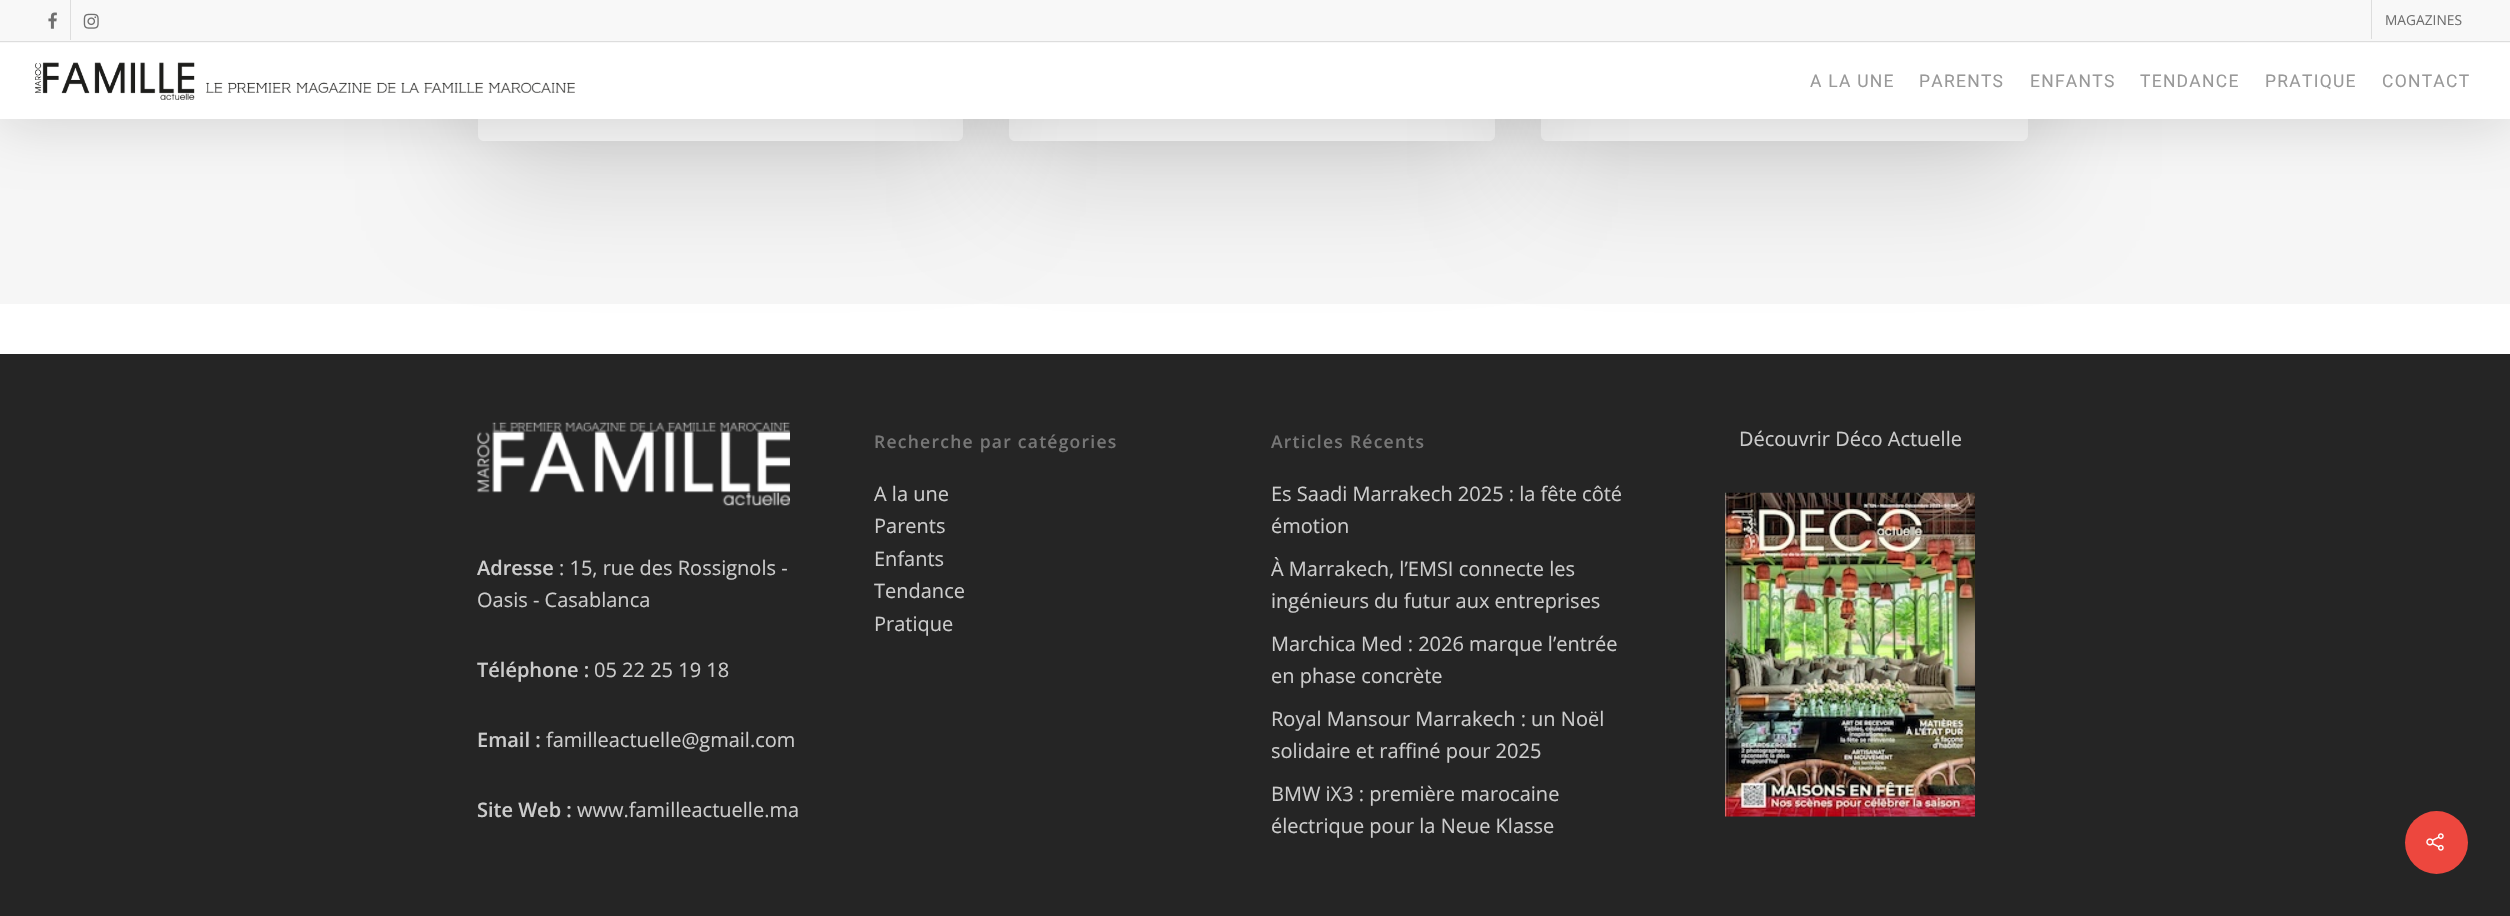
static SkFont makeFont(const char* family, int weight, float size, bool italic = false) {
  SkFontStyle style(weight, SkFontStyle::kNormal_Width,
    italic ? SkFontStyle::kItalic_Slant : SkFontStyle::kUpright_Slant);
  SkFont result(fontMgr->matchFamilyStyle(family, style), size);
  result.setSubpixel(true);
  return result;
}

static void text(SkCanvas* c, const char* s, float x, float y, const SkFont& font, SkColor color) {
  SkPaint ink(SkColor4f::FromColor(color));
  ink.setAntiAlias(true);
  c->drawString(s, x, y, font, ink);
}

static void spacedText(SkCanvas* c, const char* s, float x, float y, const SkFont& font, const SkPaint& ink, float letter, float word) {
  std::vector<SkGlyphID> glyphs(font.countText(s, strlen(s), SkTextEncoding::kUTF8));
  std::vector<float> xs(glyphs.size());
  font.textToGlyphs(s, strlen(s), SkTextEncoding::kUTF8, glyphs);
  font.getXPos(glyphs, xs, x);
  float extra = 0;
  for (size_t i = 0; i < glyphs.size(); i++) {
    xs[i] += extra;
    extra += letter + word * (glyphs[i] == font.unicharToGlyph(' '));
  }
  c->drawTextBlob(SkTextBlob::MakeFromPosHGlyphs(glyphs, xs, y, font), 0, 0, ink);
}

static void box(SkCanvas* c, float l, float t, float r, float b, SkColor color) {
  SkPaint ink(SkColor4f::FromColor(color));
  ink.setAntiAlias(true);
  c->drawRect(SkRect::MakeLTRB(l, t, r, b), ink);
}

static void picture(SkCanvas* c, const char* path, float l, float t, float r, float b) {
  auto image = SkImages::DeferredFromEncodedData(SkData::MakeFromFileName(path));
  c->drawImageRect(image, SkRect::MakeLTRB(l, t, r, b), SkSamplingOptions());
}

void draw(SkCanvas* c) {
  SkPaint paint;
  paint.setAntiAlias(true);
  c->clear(0xffffffff);
  box(c, 0, 119, 2510, 304, 0xfff6f6f6);
  paint.setColor(0x26000000);
  paint.setMaskFilter(SkMaskFilter::MakeBlur(kNormal_SkBlurStyle, 28));
  c->drawRect(SkRect::MakeLTRB(0, 4, 2510, 123), paint);
  paint.setMaskFilter(nullptr);
  c->save();
  c->clipPath(SkPathBuilder(SkPathFillType::kEvenOdd).moveTo(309, 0).lineTo(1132, 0).lineTo(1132, 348).lineTo(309, 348).close().moveTo(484, -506).lineTo(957, -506).cubicTo(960.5f, -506, 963, -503.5f, 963, -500).lineTo(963, 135).cubicTo(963, 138.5f, 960.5f, 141, 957, 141).lineTo(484, 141).cubicTo(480.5f, 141, 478, 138.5f, 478, 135).lineTo(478, -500).cubicTo(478, -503.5f, 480.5f, -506, 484, -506).close().detach(), true);
  paint.setColor(0x24000000);
  paint.setMaskFilter(SkMaskFilter::MakeBlur(kNormal_SkBlurStyle, 56));
  c->drawRoundRect(SkRect::MakeLTRB(478, -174, 963, 179), 6, 6, paint);
  paint.setMaskFilter(nullptr);
  c->restore();
  c->save();
  c->clipPath(SkPathBuilder(SkPathFillType::kEvenOdd).moveTo(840, 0).lineTo(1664, 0).lineTo(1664, 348).lineTo(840, 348).close().moveTo(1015, -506).lineTo(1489, -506).cubicTo(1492.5f, -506, 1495, -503.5f, 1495, -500).lineTo(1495, 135).cubicTo(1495, 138.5f, 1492.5f, 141, 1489, 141).lineTo(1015, 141).cubicTo(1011.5f, 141, 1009, 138.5f, 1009, 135).lineTo(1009, -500).cubicTo(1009, -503.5f, 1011.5f, -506, 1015, -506).close().detach(), true);
  paint.setMaskFilter(SkMaskFilter::MakeBlur(kNormal_SkBlurStyle, 56));
  c->drawRoundRect(SkRect::MakeLTRB(1009, -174, 1495, 179), 6, 6, paint);
  paint.setMaskFilter(nullptr);
  c->restore();
  c->save();
  c->clipPath(SkPathBuilder(SkPathFillType::kEvenOdd).moveTo(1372, 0).lineTo(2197, 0).lineTo(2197, 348).lineTo(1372, 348).close().moveTo(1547, -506).lineTo(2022, -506).cubicTo(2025.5f, -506, 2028, -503.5f, 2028, -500).lineTo(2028, 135).cubicTo(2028, 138.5f, 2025.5f, 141, 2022, 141).lineTo(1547, 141).cubicTo(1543.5f, 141, 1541, 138.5f, 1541, 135).lineTo(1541, -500).cubicTo(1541, -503.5f, 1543.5f, -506, 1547, -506).close().detach(), true);
  paint.setMaskFilter(SkMaskFilter::MakeBlur(kNormal_SkBlurStyle, 56));
  c->drawRoundRect(SkRect::MakeLTRB(1541, -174, 2028, 179), 6, 6, paint);
  paint.setMaskFilter(nullptr);
  c->restore();
  box(c, 0, 43, 2510, 119, 0xffffffff);
  box(c, 0, 0, 2510, 43, 0xfff8f8f8);
  box(c, 0, 41, 2510, 42, 0xffdddddd);
  picture(c, "img_01.png", 48, 12, 57, 29);
  box(c, 70, 0, 71, 40, 0xffdddddd);
  picture(c, "img_02.png", 83, 13, 99, 29);
  box(c, 2371, 0, 2372, 39, 0xffdddddd);
  SkFont face1 = makeFont("Open Sans", 400, 13.75f);
  text(c, "MAGAZINES", 2385, 25, face1, 0xff707070);
  picture(c, "img_03.png", 35, 62, 575, 100);
  SkFont face2 = makeFont("Roboto", 400, 17.5f);
  paint.setColor(0xff999999);
  spacedText(c, "A LA UNE", 1810, 87, face2, paint, 1.25f, 0);
  spacedText(c, "PARENTS", 1919, 87, face2, paint, 1.25f, 0);
  spacedText(c, "ENFANTS", 2030, 87, face2, paint, 1.25f, 0);
  spacedText(c, "TENDANCE", 2140, 87, face2, paint, 1.25f, 0);
  spacedText(c, "PRATIQUE", 2265, 87, face2, paint, 1.25f, 0);
  spacedText(c, "CONTACT", 2382, 87, face2, paint, 1.25f, 0);
  box(c, 0, 354, 2510, 916, 0xff252525);
  picture(c, "img_04.png", 477, 422, 790, 506);
  SkFont face3 = makeFont("Open Sans", 600, 20);
  text(c, "Adresse", 477, 575, face3, 0xffcccccc);
  SkFont face4 = makeFont("Open Sans", 400, 20);
  text(c, ": 15, rue des Rossignols -", 559, 575, face4, 0xffcccccc);
  text(c, "Oasis - Casablanca", 477, 607, face4, 0xffcccccc);
  text(c, "Téléphone :", 477, 677, face3, 0xffcccccc);
  text(c, "05 22 25 19 18", 594, 677, face4, 0xffcccccc);
  text(c, "Email :", 477, 747, face3, 0xffcccccc);
  text(c, "familleactuelle@gmail.com", 546, 747, face4, 0xffcccccc);
  text(c, "Site Web :", 477, 817, face3, 0xffcccccc);
  text(c, "www.familleactuelle.ma", 577, 817, face4, 0xffcccccc);
  SkFont face5 = makeFont("Open Sans", 600, 17.5f);
  paint.setColor(0xff777777);
  spacedText(c, "Recherche par catégories", 874, 448, face5, paint, 1.25f, 0);
  text(c, "A la une", 874, 501, face4, 0xffcccccc);
  text(c, "Parents", 874, 533, face4, 0xffcccccc);
  text(c, "Enfants", 874, 566, face4, 0xffcccccc);
  text(c, "Tendance", 874, 598, face4, 0xffcccccc);
  text(c, "Pratique", 874, 631, face4, 0xffcccccc);
  spacedText(c, "Articles Récents", 1271, 448, face5, paint, 1.25f, 0);
  text(c, "Es Saadi Marrakech 2025 : la fête côté", 1271, 501, face4, 0xffcccccc);
  text(c, "émotion", 1271, 533, face4, 0xffcccccc);
  text(c, "À Marrakech, l’EMSI connecte les", 1271, 576, face4, 0xffcccccc);
  text(c, "ingénieurs du futur aux entreprises", 1271, 608, face4, 0xffcccccc);
  text(c, "Marchica Med : 2026 marque l’entrée", 1271, 651, face4, 0xffcccccc);
  text(c, "en phase concrète", 1271, 683, face4, 0xffcccccc);
  text(c, "Royal Mansour Marrakech : un Noël", 1271, 726, face4, 0xffcccccc);
  text(c, "solidaire et raffiné pour 2025", 1271, 758, face4, 0xffcccccc);
  text(c, "BMW iX3 : première marocaine", 1271, 801, face4, 0xffcccccc);
  text(c, "électrique pour la Neue Klasse", 1271, 833, face4, 0xffcccccc);
  text(c, "Découvrir Déco Actuelle", 1739, 446, face4, 0xffcccccc);
  picture(c, "img_05.png", 1725, 492, 1975, 817);
  paint.setColor(0xffed473e);
  c->drawCircle(2436.5f, 842.5f, 31.5f, paint);
  picture(c, "img_06.png", 2426, 833, 2444, 851);
}
